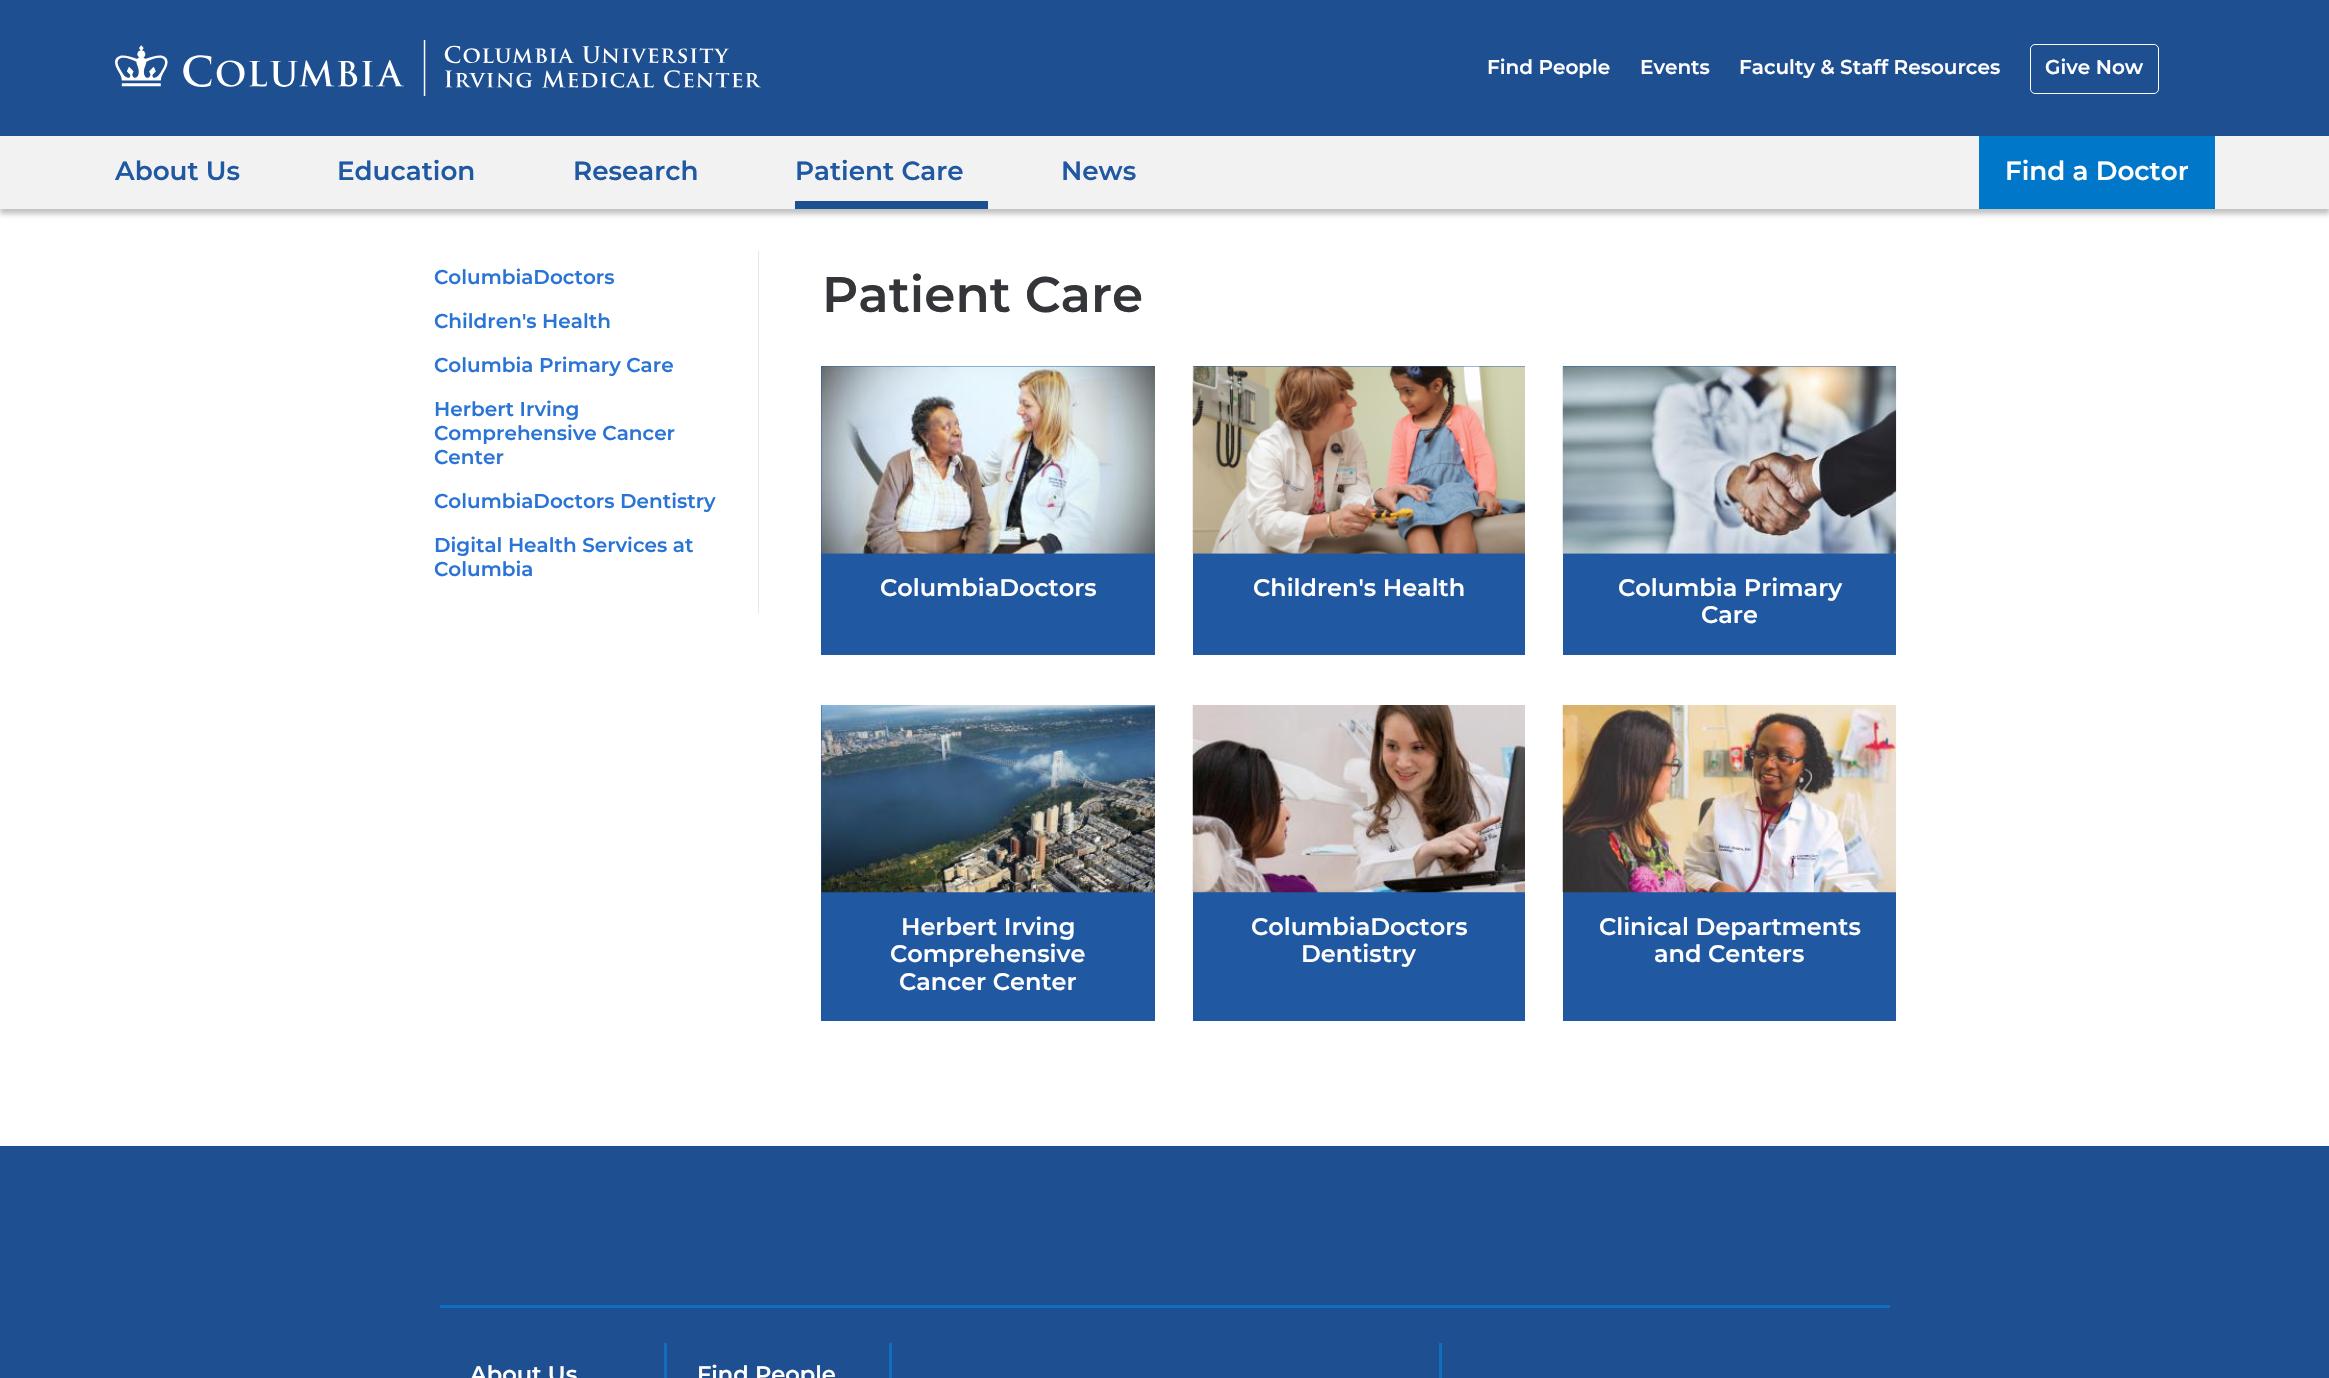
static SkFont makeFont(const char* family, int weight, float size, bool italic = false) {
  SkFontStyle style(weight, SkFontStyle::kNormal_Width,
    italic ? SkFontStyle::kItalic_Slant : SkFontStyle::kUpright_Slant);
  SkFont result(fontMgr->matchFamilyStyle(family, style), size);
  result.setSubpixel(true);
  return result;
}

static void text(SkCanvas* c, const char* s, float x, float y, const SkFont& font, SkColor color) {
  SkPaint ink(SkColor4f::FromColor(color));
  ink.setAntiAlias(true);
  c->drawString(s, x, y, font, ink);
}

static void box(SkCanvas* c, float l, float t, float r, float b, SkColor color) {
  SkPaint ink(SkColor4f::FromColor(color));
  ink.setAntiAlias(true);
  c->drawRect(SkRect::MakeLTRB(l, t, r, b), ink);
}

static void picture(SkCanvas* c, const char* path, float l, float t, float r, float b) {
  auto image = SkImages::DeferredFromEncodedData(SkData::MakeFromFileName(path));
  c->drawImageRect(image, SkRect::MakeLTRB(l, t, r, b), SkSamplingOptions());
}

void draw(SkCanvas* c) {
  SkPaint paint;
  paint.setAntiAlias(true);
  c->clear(0xffffffff);
  paint.setColor(0x3d000000);
  paint.setMaskFilter(SkMaskFilter::MakeBlur(kNormal_SkBlurStyle, 2.5f));
  c->drawRect(SkRect::MakeLTRB(0, 5, 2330, 214), paint);
  paint.setMaskFilter(nullptr);
  box(c, 0, 0, 2329, 136, 0xff1d4f91);
  picture(c, "img_01.png", 115, 40, 761, 96);
  SkFont face1 = makeFont("Montserrat", 600, 20);
  text(c, "Find People", 1487, 74, face1, 0xffffffff);
  text(c, "Events", 1640, 74, face1, 0xffffffff);
  text(c, "Faculty & Staff Resources", 1739, 74, face1, 0xffffffff);
  paint.setStyle(SkPaint::kStroke_Style);
  paint.setStrokeWidth(1);
  paint.setColor(0xffffffff);
  c->drawRoundRect(SkRect::MakeLTRB(2030.5f, 44.5f, 2158.5f, 93.5f), 4.5f, 4.5f, paint);
  text(c, "Give Now", 2045, 74, face1, 0xffffffff);
  box(c, 0, 136, 2329, 209, 0xfff2f2f3);
  SkFont face2 = makeFont("Montserrat", 600, 26.25f);
  text(c, "About Us", 115, 180, face2, 0xff2058a2);
  text(c, "Education", 337, 180, face2, 0xff2058a2);
  text(c, "Research", 573, 180, face2, 0xff2058a2);
  box(c, 795, 201, 988, 209, 0xff1d4f91);
  text(c, "Patient Care", 795, 180, face2, 0xff2058a2);
  text(c, "News", 1061, 180, face2, 0xff2058a2);
  box(c, 1979, 136, 2215, 209, 0xff0077c8);
  text(c, "Find a Doctor", 2005, 180, face2, 0xffffffff);
  box(c, 758, 251, 759, 614, 0xffe7e8e9);
  text(c, "ColumbiaDoctors", 434, 284, face1, 0xff2a74d5);
  text(c, "Children's Health", 434, 328, face1, 0xff2a74d5);
  text(c, "Columbia Primary Care", 434, 372, face1, 0xff2a74d5);
  text(c, "Herbert Irving", 434, 416, face1, 0xff2a74d5);
  text(c, "Comprehensive Cancer", 434, 440, face1, 0xff2a74d5);
  text(c, "Center", 434, 464, face1, 0xff2a74d5);
  text(c, "ColumbiaDoctors Dentistry", 434, 508, face1, 0xff2a74d5);
  text(c, "Digital Health Services at", 434, 552, face1, 0xff2a74d5);
  text(c, "Columbia", 434, 576, face1, 0xff2a74d5);
  SkFont face3 = makeFont("Montserrat", 600, 50);
  text(c, "Patient Care", 822, 312, face3, 0xff333538);
  box(c, 821, 366, 1155, 655, 0xff2058a2);
  picture(c, "img_02.png", 821, 366, 1155, 554);
  SkFont face4 = makeFont("Montserrat", 600, 24);
  text(c, "ColumbiaDoctors", 880, 596, face4, 0xffffffff);
  box(c, 1193, 366, 1525, 655, 0xff2058a2);
  picture(c, "img_03.png", 1192, 366, 1525, 554);
  text(c, "Children's Health", 1253, 596, face4, 0xffffffff);
  box(c, 1563, 366, 1896, 655, 0xff2058a2);
  picture(c, "img_04.png", 1562, 366, 1897, 554);
  text(c, "Columbia Primary", 1618, 596, face4, 0xffffffff);
  text(c, "Care", 1701, 623, face4, 0xffffffff);
  box(c, 821, 705, 1155, 1021, 0xff2058a2);
  picture(c, "img_05.png", 821, 705, 1155, 893);
  text(c, "Herbert Irving", 901, 935, face4, 0xffffffff);
  text(c, "Comprehensive", 890, 962, face4, 0xffffffff);
  text(c, "Cancer Center", 899, 990, face4, 0xffffffff);
  box(c, 1193, 892, 1525, 1021, 0xff2058a2);
  picture(c, "img_06.png", 1192, 705, 1525, 893);
  text(c, "ColumbiaDoctors", 1251, 935, face4, 0xffffffff);
  text(c, "Dentistry", 1301, 962, face4, 0xffffffff);
  box(c, 1563, 892, 1896, 1021, 0xff2058a2);
  picture(c, "img_07.png", 1562, 705, 1897, 893);
  text(c, "Clinical Departments", 1599, 935, face4, 0xffffffff);
  text(c, "and Centers", 1654, 962, face4, 0xffffffff);
  box(c, 0, 1146, 2329, 1378, 0xff1d4f91);
  box(c, 440, 1305, 1890, 1308, 0xff116dbd);
  box(c, 889, 1343, 892, 1378, 0xff116dbd);
  SkFont face5 = makeFont("Montserrat", 600, 22.5f);
  text(c, "About Us", 470, 1382, face5, 0xffffffff);
  box(c, 664, 1343, 667, 1378, 0xff116dbd);
  text(c, "Find People", 697, 1382, face5, 0xffffffff);
  box(c, 1439, 1343, 1442, 1378, 0xff116dbd);
}
